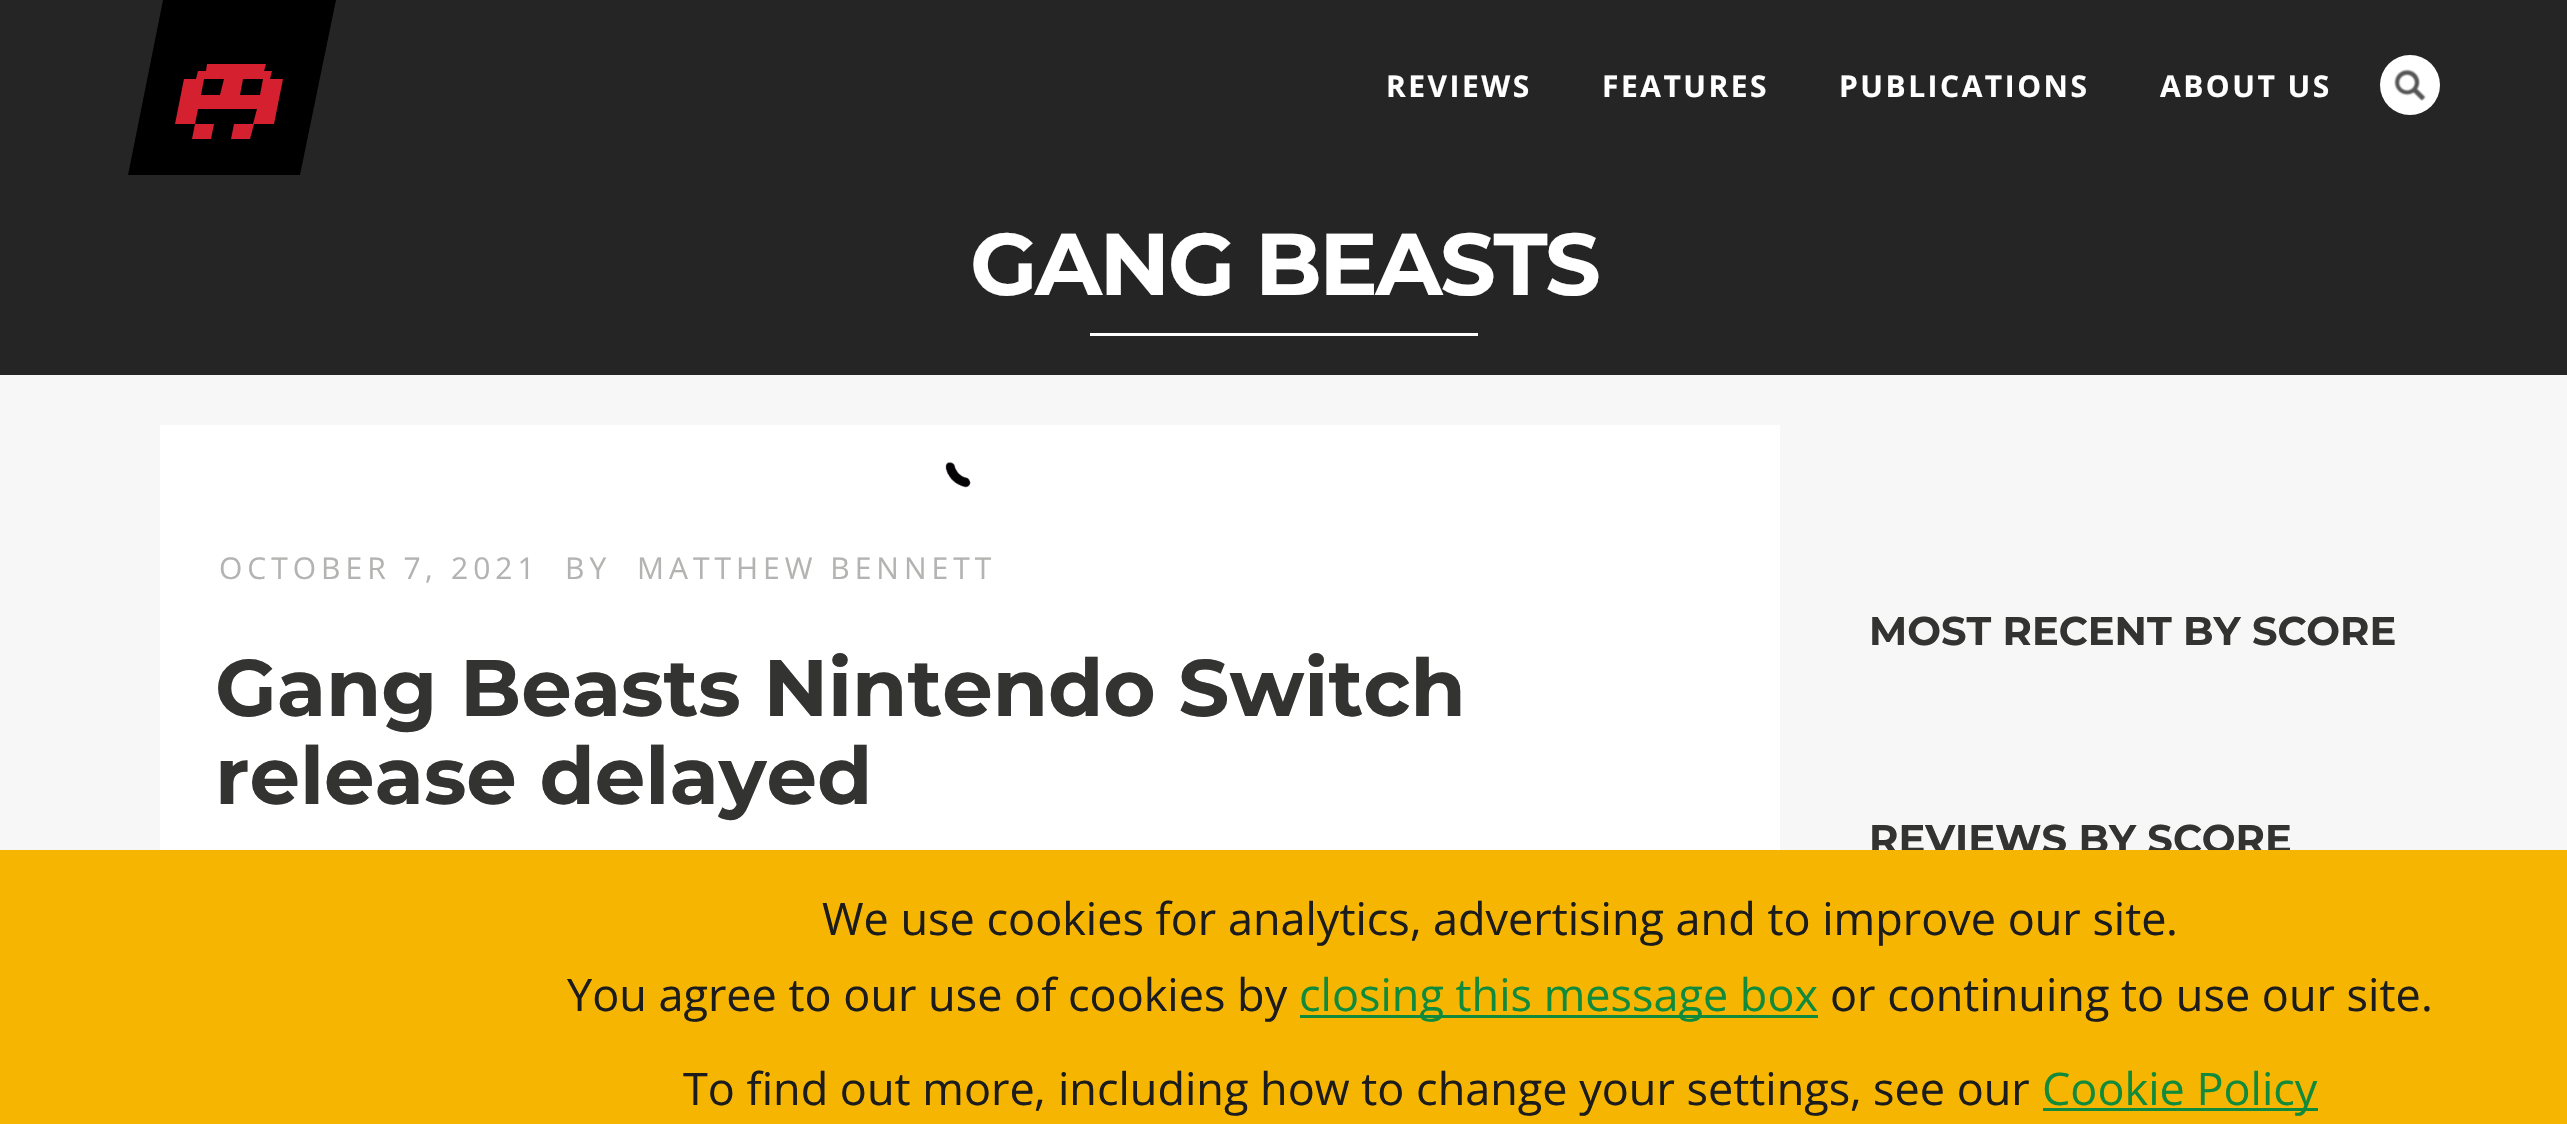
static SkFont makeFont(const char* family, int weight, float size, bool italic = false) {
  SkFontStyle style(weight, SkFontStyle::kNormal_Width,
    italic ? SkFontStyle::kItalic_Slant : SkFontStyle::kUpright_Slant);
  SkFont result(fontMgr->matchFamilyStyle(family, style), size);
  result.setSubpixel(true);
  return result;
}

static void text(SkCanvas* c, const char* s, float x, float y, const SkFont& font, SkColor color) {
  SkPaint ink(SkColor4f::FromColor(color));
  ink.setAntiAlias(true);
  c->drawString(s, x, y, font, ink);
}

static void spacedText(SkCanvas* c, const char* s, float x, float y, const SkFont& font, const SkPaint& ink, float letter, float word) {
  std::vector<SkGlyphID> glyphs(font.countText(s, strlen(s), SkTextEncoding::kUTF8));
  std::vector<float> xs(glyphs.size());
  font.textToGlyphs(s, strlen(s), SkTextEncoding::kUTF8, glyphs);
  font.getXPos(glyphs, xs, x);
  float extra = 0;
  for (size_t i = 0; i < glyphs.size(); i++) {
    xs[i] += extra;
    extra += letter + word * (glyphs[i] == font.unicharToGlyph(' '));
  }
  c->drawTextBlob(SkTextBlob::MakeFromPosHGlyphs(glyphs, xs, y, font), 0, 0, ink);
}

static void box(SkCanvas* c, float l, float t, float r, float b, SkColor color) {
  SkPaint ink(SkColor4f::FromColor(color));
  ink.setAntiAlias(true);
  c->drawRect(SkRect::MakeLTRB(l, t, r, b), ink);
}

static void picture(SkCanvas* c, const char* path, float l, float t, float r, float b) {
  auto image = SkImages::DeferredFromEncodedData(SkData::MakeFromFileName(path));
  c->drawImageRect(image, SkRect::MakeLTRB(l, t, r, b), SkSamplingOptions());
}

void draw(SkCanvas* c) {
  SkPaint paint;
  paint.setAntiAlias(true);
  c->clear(0xfff7f7f7);
  box(c, 0, 0, 2567, 375, 0xff252525);
  paint.setColor(0xff000000);
  c->drawPath(SkPathBuilder(SkPathFillType::kEvenOdd).moveTo(163, 0).lineTo(128, 175).lineTo(300, 175).lineTo(336, 0).close().detach(), paint);
  paint.setColor(0xffd4202f);
  c->drawPath(SkPathBuilder(SkPathFillType::kEvenOdd).moveTo(211, 139).lineTo(214, 124).lineTo(195, 124).lineTo(192, 139).close().moveTo(231, 139).lineTo(250, 139).lineTo(254, 124).lineTo(234, 124).close().moveTo(270, 79).lineTo(272, 71).lineTo(264, 71).lineTo(266, 64).lineTo(207, 64).lineTo(206, 71).lineTo(198, 71).lineTo(196, 79).lineTo(184, 79).lineTo(175, 124).lineTo(195, 124).lineTo(198, 109).lineTo(257, 109).lineTo(253, 124).lineTo(274, 124).lineTo(283, 79).close().moveTo(220, 95).lineTo(201, 95).lineTo(204, 79).lineTo(224, 79).close().moveTo(260, 95).lineTo(240, 95).lineTo(243, 79).lineTo(263, 79).close().detach(), paint);
  SkFont face1 = makeFont("Open Sans", 700, 30);
  paint.setColor(0xffffffff);
  spacedText(c, "REVIEWS", 1386, 97, face1, paint, 2.5f, 0);
  spacedText(c, "FEATURES", 1602, 97, face1, paint, 2.5f, 0);
  spacedText(c, "PUBLICATIONS", 1839, 97, face1, paint, 2.5f, 0);
  spacedText(c, "ABOUT US", 2160, 97, face1, paint, 2.5f, 0);
  c->drawCircle(2410, 85, 30, paint);
  picture(c, "img_01.png", 2394, 69, 2426, 101);
  SkFont face2 = makeFont("Montserrat", 700, 87.5f);
  spacedText(c, "GANG BEASTS", 970, 295, face2, paint, -2.5f, 0);
  box(c, 1090, 333, 1478, 336, 0xffffffff);
  box(c, 160, 425, 1780, 850, 0xffffffff);
  picture(c, "img_02.png", 945, 462, 971, 488);
  SkFont face3 = makeFont("Open Sans", 400, 30);
  paint.setColor(0xffb3b3b1);
  spacedText(c, "OCTOBER 7", 219, 579, face3, paint, 5, 0);
  SkFont face4 = makeFont("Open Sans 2", 400, 30);
  spacedText(c, ",", 425, 579, face4, paint, 5, 0);
  spacedText(c, "2021", 451, 579, face3, paint, 5, 0);
  spacedText(c, "BY", 565, 579, face3, paint, 5, 0);
  spacedText(c, "MATTHEW BENNETT", 637, 579, face3, paint, 5, 0);
  SkFont face5 = makeFont("Montserrat", 700, 80);
  text(c, "Gang Beasts Nintendo Switch", 215, 716, face5, 0xff333332);
  text(c, "release delayed", 215, 804, face5, 0xff333332);
  SkFont face6 = makeFont("Montserrat", 700, 40);
  text(c, "MOST RECENT BY SCORE", 1869, 645, face6, 0xff333332);
  text(c, "REVIEWS BY SCORE", 1869, 853, face6, 0xff333332);
  box(c, 0, 850, 2567, 1124, 0xfff6b500);
  SkFont face7 = makeFont("Open Sans", 400, 45);
  text(c, "We use cookies for analytics", 822, 935, face7, 0xff1c1c1c);
  SkFont face8 = makeFont("Open Sans 2", 400, 45);
  text(c, ",", 1410, 935, face8, 0xff1c1c1c);
  text(c, "advertising and to improve our site", 1433, 935, face7, 0xff1c1c1c);
  text(c, ".", 2166, 935, face8, 0xff1c1c1c);
  text(c, "You agree to our use of cookies by", 567, 1011, face7, 0xff1c1c1c);
  box(c, 1300, 1015, 1818, 1018, 0xff118b3b);
  text(c, "closing this message box", 1299, 1011, face7, 0xff118b3b);
  text(c, "or continuing to use our site", 1830, 1011, face7, 0xff1c1c1c);
  text(c, ".", 2421, 1011, face8, 0xff1c1c1c);
  text(c, "To find out more", 683, 1105, face7, 0xff1c1c1c);
  text(c, ",", 1034, 1105, face8, 0xff1c1c1c);
  text(c, "including how to change your settings", 1058, 1105, face7, 0xff1c1c1c);
  text(c, ",", 1850, 1105, face8, 0xff1c1c1c);
  text(c, "see our", 1873, 1105, face7, 0xff1c1c1c);
  box(c, 2043, 1108, 2318, 1111, 0xff118b3b);
  text(c, "Cookie Policy", 2042, 1105, face7, 0xff118b3b);
}
